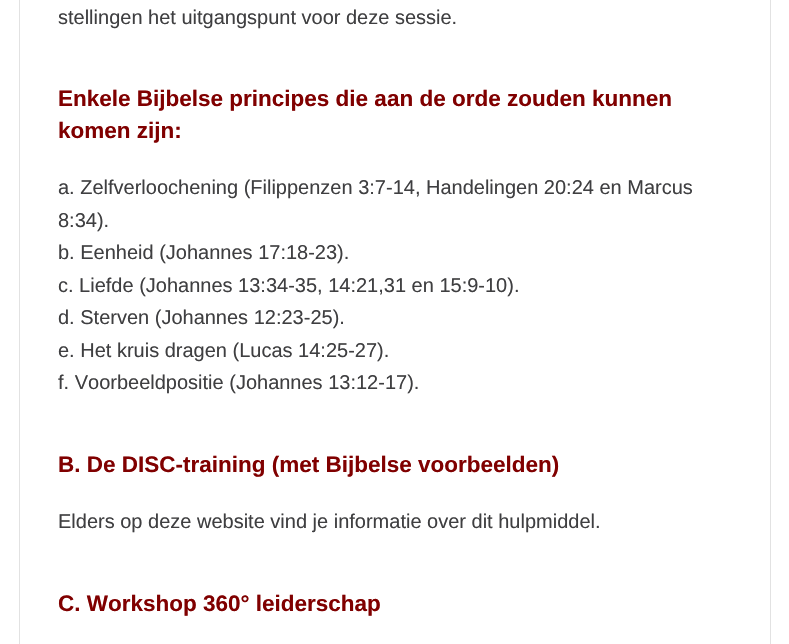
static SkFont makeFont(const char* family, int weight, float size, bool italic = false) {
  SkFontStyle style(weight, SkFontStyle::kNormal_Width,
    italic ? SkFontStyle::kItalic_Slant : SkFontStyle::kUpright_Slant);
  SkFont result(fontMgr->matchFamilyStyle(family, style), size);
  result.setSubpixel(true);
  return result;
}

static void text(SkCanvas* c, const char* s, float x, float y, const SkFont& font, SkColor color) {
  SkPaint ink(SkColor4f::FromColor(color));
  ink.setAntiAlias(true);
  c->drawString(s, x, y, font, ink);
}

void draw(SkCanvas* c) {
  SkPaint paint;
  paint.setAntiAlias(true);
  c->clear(0xffffffff);
  paint.setStyle(SkPaint::kStroke_Style);
  paint.setStrokeWidth(1);
  paint.setColor(0xffe2e2e2);
  c->drawRect(SkRect::MakeLTRB(19.5f, -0.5f, 770.5f, 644.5f), paint);
  SkFont face1 = makeFont("Liberation Sans", 400, 20);
  text(c, "stellingen het uitgangspunt voor deze sessie.", 58, 24, face1, 0xff3f3f41);
  SkFont face2 = makeFont("Liberation Sans", 700, 22.5f);
  text(c, "Enkele Bijbelse principes die aan de orde zouden kunnen", 58, 106, face2, 0xff800000);
  text(c, "komen zijn:", 58, 138, face2, 0xff800000);
  text(c, "a. Zelfverloochening (Filippenzen 3:7-14, Handelingen 20:24 en Marcus", 58, 194, face1, 0xff3f3f41);
  text(c, "8:34).", 58, 227, face1, 0xff3f3f41);
  text(c, "b. Eenheid (Johannes 17:18-23).", 58, 259, face1, 0xff3f3f41);
  text(c, "c. Liefde (Johannes 13:34-35, 14:21,31 en 15:9-10).", 58, 292, face1, 0xff3f3f41);
  text(c, "d. Sterven (Johannes 12:23-25).", 58, 324, face1, 0xff3f3f41);
  text(c, "e. Het kruis dragen (Lucas 14:25-27).", 58, 357, face1, 0xff3f3f41);
  text(c, "f. Voorbeeldpositie (Johannes 13:12-17).", 58, 389, face1, 0xff3f3f41);
  text(c, "B. De DISC-training (met Bijbelse voorbeelden)", 58, 472, face2, 0xff800000);
  text(c, "Elders op deze website vind je informatie over dit hulpmiddel.", 58, 528, face1, 0xff3f3f41);
  text(c, "C. Workshop 360° leiderschap", 58, 611, face2, 0xff800000);
}
